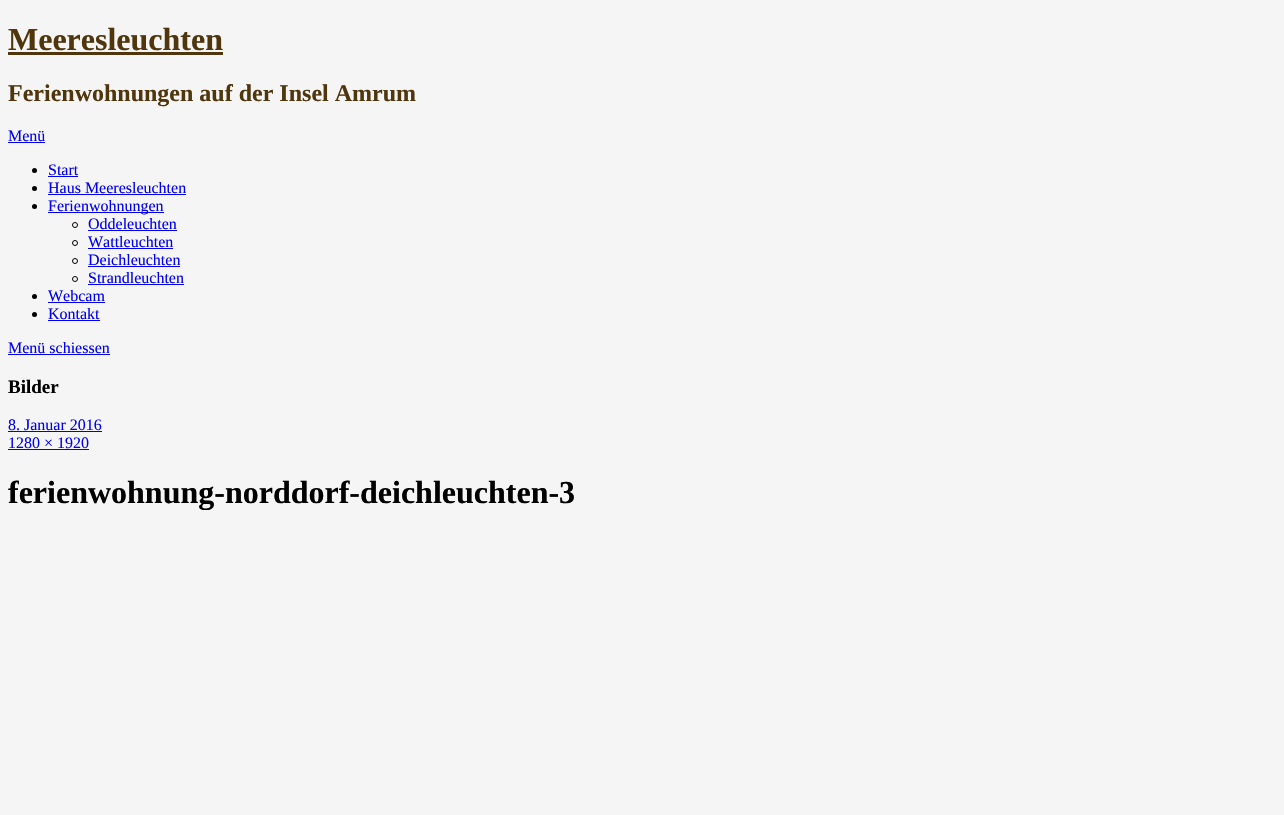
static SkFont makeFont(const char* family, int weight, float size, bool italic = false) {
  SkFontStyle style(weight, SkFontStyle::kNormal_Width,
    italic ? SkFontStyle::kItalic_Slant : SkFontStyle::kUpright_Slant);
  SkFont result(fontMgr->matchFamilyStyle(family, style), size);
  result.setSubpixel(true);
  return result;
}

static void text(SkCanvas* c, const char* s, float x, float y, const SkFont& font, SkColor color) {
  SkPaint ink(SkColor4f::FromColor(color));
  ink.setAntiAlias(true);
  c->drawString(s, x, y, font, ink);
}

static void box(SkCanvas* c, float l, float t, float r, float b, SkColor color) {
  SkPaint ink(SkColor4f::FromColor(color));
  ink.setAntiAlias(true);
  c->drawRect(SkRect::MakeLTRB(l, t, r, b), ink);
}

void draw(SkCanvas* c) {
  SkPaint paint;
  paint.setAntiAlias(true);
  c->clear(0xfff5f5f5);
  SkFont face1 = makeFont("Liberation Serif", 700, 32);
  text(c, "Meeresleuchten", 8, 50, face1, 0xff4f360c);
  box(c, 8, 52, 223, 55, 0xff4f360c);
  SkFont face2 = makeFont("Liberation Serif", 700, 24);
  text(c, "Ferienwohnungen auf der Insel Amrum", 8, 101, face2, 0xff4f360c);
  SkFont face3 = makeFont("Liberation Serif", 400, 16);
  text(c, "Menü", 8, 141, face3, 0xff0000ee);
  box(c, 8, 142, 45, 143, 0xff0000ee);
  paint.setColor(0xff000000);
  c->drawCircle(34.5f, 170.5f, 2.5f, paint);
  text(c, "Start", 48, 175, face3, 0xff0000ee);
  box(c, 48, 176, 78, 177, 0xff0000ee);
  c->drawCircle(34.5f, 188.5f, 2.5f, paint);
  text(c, "Haus Meeresleuchten", 48, 193, face3, 0xff0000ee);
  box(c, 48, 194, 186, 195, 0xff0000ee);
  c->drawCircle(34.5f, 206.5f, 2.5f, paint);
  box(c, 48, 212, 164, 213, 0xff0000ee);
  text(c, "Ferienwohnungen", 48, 211, face3, 0xff0000ee);
  paint.setStyle(SkPaint::kStroke_Style);
  paint.setStrokeWidth(1);
  c->drawCircle(75, 225, 2.5f, paint);
  text(c, "Oddeleuchten", 88, 229, face3, 0xff0000ee);
  box(c, 88, 230, 177, 231, 0xff0000ee);
  c->drawCircle(75, 243, 2.5f, paint);
  text(c, "Wattleuchten", 88, 247, face3, 0xff0000ee);
  box(c, 88, 248, 173, 249, 0xff0000ee);
  c->drawCircle(75, 261, 2.5f, paint);
  text(c, "Deichleuchten", 88, 265, face3, 0xff0000ee);
  box(c, 88, 266, 180, 267, 0xff0000ee);
  c->drawCircle(75, 279, 2.5f, paint);
  text(c, "Strandleuchten", 88, 283, face3, 0xff0000ee);
  box(c, 88, 284, 184, 285, 0xff0000ee);
  paint.setStyle(SkPaint::kFill_Style);
  c->drawCircle(34.5f, 296.5f, 2.5f, paint);
  text(c, "Webcam", 48, 301, face3, 0xff0000ee);
  box(c, 48, 302, 105, 303, 0xff0000ee);
  c->drawCircle(34.5f, 314.5f, 2.5f, paint);
  text(c, "Kontakt", 48, 319, face3, 0xff0000ee);
  box(c, 48, 320, 100, 321, 0xff0000ee);
  text(c, "Menü schiessen", 8, 353, face3, 0xff0000ee);
  box(c, 8, 354, 110, 355, 0xff0000ee);
  SkFont face4 = makeFont("Liberation Serif", 700, 19);
  text(c, "Bilder", 8, 393, face4, 0xff000000);
  text(c, "8. Januar 2016", 8, 430, face3, 0xff0000ee);
  box(c, 8, 431, 102, 432, 0xff0000ee);
  text(c, "1280 × 1920", 8, 448, face3, 0xff0000ee);
  box(c, 8, 449, 89, 450, 0xff0000ee);
  text(c, "ferienwohnung-norddorf-deichleuchten-3", 8, 503, face1, 0xff000000);
}
